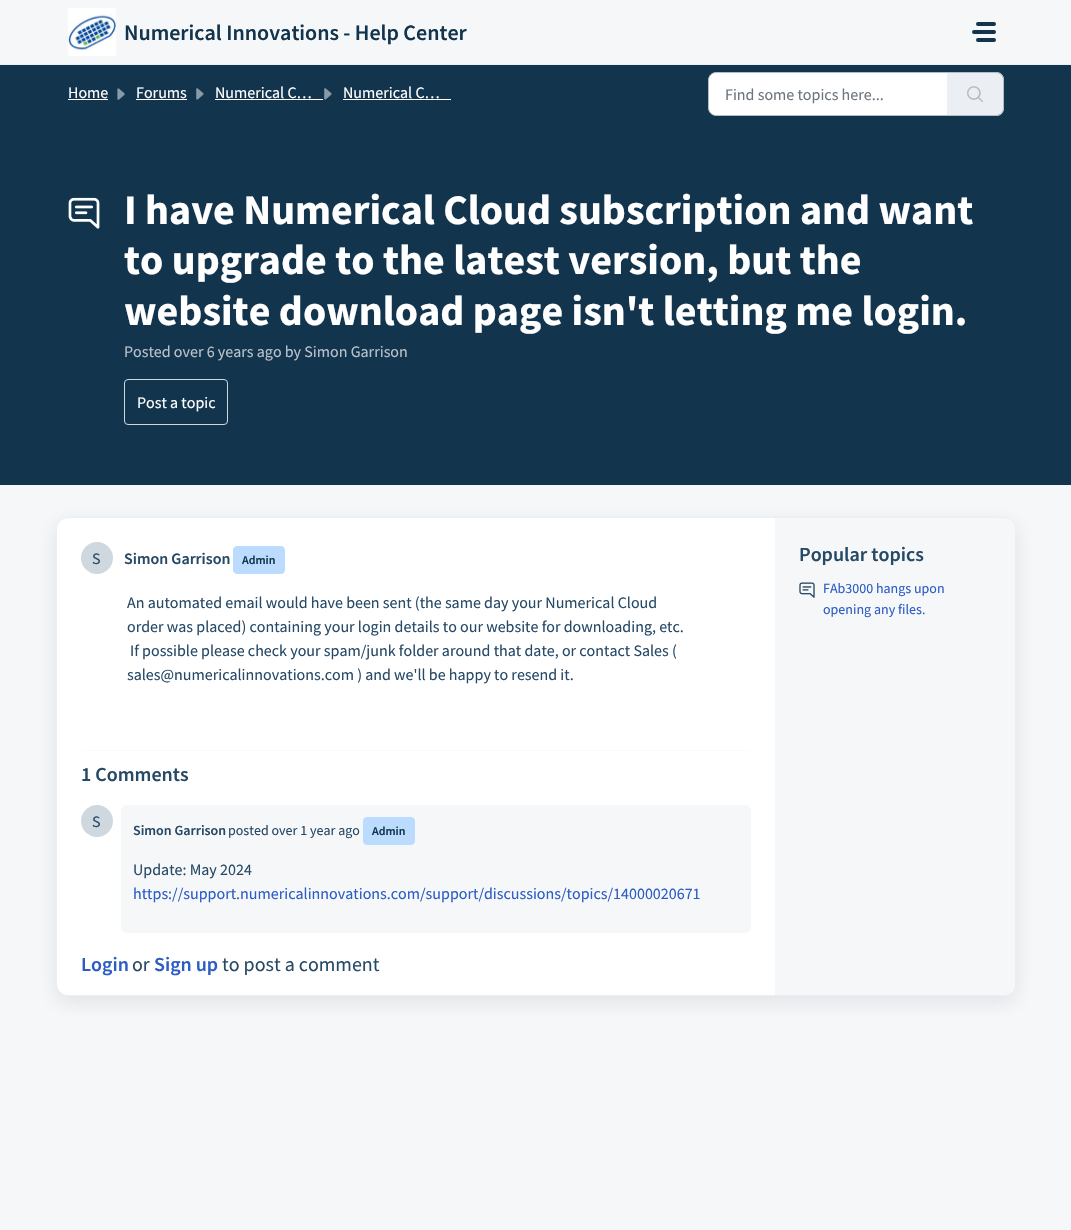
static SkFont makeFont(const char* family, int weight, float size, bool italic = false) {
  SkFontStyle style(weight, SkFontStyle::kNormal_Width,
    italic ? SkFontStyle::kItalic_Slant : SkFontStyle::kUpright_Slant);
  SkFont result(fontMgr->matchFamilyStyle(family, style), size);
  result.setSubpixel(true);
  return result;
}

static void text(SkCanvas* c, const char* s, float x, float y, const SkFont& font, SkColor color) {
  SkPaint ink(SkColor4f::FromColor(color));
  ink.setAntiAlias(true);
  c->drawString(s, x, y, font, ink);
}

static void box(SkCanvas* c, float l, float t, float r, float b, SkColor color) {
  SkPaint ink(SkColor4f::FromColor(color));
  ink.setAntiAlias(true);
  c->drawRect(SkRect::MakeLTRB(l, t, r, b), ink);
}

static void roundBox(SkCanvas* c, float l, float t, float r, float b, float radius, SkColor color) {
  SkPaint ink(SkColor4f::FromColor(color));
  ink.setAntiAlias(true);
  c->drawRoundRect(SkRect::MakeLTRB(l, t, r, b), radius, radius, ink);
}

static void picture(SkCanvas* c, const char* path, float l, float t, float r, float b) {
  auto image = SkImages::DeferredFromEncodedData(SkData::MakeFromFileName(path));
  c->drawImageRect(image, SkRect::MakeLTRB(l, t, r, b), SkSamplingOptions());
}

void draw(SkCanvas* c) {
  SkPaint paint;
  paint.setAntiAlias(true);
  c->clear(0xfff5f7f9);
  box(c, 0, 64, 1071, 65, 0xffebeff3);
  picture(c, "img_01.png", 68, 8, 116, 56);
  SkFont face1 = makeFont("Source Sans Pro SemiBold", 600, 22);
  text(c, "Numerical Innovations - Help Center", 124, 40, face1, 0xff12344d);
  roundBox(c, 976, 22, 996, 26, 2, 0xff12344d);
  roundBox(c, 972, 30, 996, 34, 2, 0xff12344d);
  roundBox(c, 976, 38, 996, 42, 2, 0xff12344d);
  box(c, 0, 65, 1071, 485, 0xff12344d);
  SkFont face2 = makeFont("Source Sans Pro", 400, 16);
  text(c, "Home", 68, 98, face2, 0xffffffff);
  box(c, 68, 99, 108, 100, 0xffffffff);
  picture(c, "img_02.png", 117, 88, 125, 100);
  text(c, "Forums", 136, 98, face2, 0xffffffff);
  box(c, 136, 99, 187, 100, 0xffffffff);
  picture(c, "img_03.png", 196, 88, 204, 100);
  text(c, "Numerical C…", 215, 98, face2, 0xffffffff);
  box(c, 215, 99, 323, 100, 0xffffffff);
  picture(c, "img_03.png", 324, 88, 332, 100);
  text(c, "Numerical C…", 343, 98, face2, 0xffffffff);
  box(c, 343, 99, 451, 100, 0xffffffff);
  paint.setColor(0xffffffff);
  c->drawPath(SkPathBuilder().moveTo(716, 72.5f).lineTo(947.5f, 72.5f).lineTo(947.5f, 115.5f).lineTo(716, 115.5f).cubicTo(712, 115.5f, 708.5f, 112, 708.5f, 108).lineTo(708.5f, 80).cubicTo(708.5f, 76, 712, 72.5f, 716, 72.5f).close().detach(), paint);
  paint.setStyle(SkPaint::kStroke_Style);
  paint.setStrokeWidth(1);
  paint.setColor(0xffb1bdc8);
  c->drawPath(SkPathBuilder().moveTo(716, 72.5f).lineTo(947.5f, 72.5f).lineTo(947.5f, 115.5f).lineTo(716, 115.5f).cubicTo(712, 115.5f, 708.5f, 112, 708.5f, 108).lineTo(708.5f, 80).cubicTo(708.5f, 76, 712, 72.5f, 716, 72.5f).close().detach(), paint);
  text(c, "Find some topics here...", 725, 100, face2, 0xff6c757d);
  paint.setStyle(SkPaint::kFill_Style);
  paint.setColor(0xffebeff3);
  c->drawPath(SkPathBuilder().moveTo(947, 72).lineTo(996, 72).cubicTo(1000.5f, 72, 1004, 75.5f, 1004, 80).lineTo(1004, 108).cubicTo(1004, 112.5f, 1000.5f, 116, 996, 116).lineTo(947, 116).close().detach(), paint);
  paint.setColor(0xffb1bdc8);
  c->drawPath(SkPathBuilder(SkPathFillType::kEvenOdd).moveTo(947, 72).lineTo(996, 72).cubicTo(1000, 72, 1004, 76, 1004, 80).lineTo(1004, 108).cubicTo(1004, 112, 1000, 116, 996, 116).lineTo(947, 116).close().moveTo(947, 73).lineTo(996, 73).cubicTo(1000, 73, 1003, 76, 1003, 80).lineTo(1003, 108).cubicTo(1003, 112, 1000, 115, 996, 115).lineTo(947, 115).close().detach(), paint);
  picture(c, "img_04.png", 967, 86, 983, 103);
  picture(c, "img_05.png", 68, 197, 100, 229);
  SkFont face3 = makeFont("Source Sans Pro", 700, 42);
  text(c, "I have Numerical Cloud subscription and want", 124, 224, face3, 0xffffffff);
  text(c, "to upgrade to the latest version, but the", 124, 274, face3, 0xffffffff);
  text(c, "website download page isn't letting me login.", 124, 325, face3, 0xffffffff);
  text(c, "Posted over 6 years ago by Simon Garrison", 124, 357, face2, 0xffb8c2ca);
  paint.setStyle(SkPaint::kStroke_Style);
  paint.setColor(0xffcfd7df);
  c->drawRoundRect(SkRect::MakeLTRB(124.5f, 379.5f, 227.5f, 424.5f), 3.5f, 3.5f, paint);
  text(c, "Post a topic", 137, 408, face2, 0xffffffff);
  paint.setStyle(SkPaint::kFill_Style);
  paint.setColor(0x1a27313a);
  paint.setMaskFilter(SkMaskFilter::MakeBlur(kNormal_SkBlurStyle, 9.5f));
  c->drawRoundRect(SkRect::MakeLTRB(56, 523, 1016, 1002), 12, 12, paint);
  paint.setMaskFilter(nullptr);
  paint.setColor(0xffffffff);
  c->drawRoundRect(SkRect::MakeLTRB(56.5f, 517.5f, 1015.5f, 995.5f), 11.5f, 11.5f, paint);
  paint.setStyle(SkPaint::kStroke_Style);
  paint.setColor(0xffebeff3);
  c->drawRoundRect(SkRect::MakeLTRB(56.5f, 517.5f, 1015.5f, 995.5f), 11.5f, 11.5f, paint);
  paint.setStyle(SkPaint::kFill_Style);
  paint.setColor(0xffcfd7df);
  c->drawCircle(97, 558, 16, paint);
  text(c, "S", 92, 564, face2, 0xff264966);
  SkFont face4 = makeFont("Source Sans Pro SemiBold", 600, 16);
  text(c, "Simon Garrison", 124, 564, face4, 0xff264966);
  paint.setColor(0xffbbdcfe);
  c->drawRoundRect(SkRect::MakeLTRB(233.5f, 546.5f, 284.5f, 573.5f), 3.5f, 3.5f, paint);
  paint.setStyle(SkPaint::kStroke_Style);
  c->drawRoundRect(SkRect::MakeLTRB(233.5f, 546.5f, 284.5f, 573.5f), 3.5f, 3.5f, paint);
  SkFont face5 = makeFont("Source Sans Pro SemiBold", 600, 12);
  text(c, "Admin", 242, 564, face5, 0xff12344d);
  text(c, "An automated email would have been sent (the same day your Numerical Cloud", 127, 608, face2, 0xff264966);
  text(c, "order was placed) containing your login details to our website for downloading, etc.", 127, 632, face2, 0xff264966);
  text(c, "If possible please check your spam/junk folder around that date, or contact Sales (", 130, 656, face2, 0xff264966);
  text(c, "sales@numericalinnovations.com ) and we'll be happy to resend it.", 127, 680, face2, 0xff264966);
  box(c, 81, 750, 751, 751, 0xfffafbfc);
  SkFont face6 = makeFont("Source Sans Pro SemiBold", 600, 20);
  text(c, "1 Comments", 81, 781, face6, 0xff264966);
  paint.setStyle(SkPaint::kFill_Style);
  paint.setColor(0xffcfd7df);
  c->drawCircle(97, 821, 16, paint);
  text(c, "S", 92, 827, face2, 0xff264966);
  roundBox(c, 121, 805, 751, 933, 6, 0xfff5f7f9);
  SkFont face7 = makeFont("Source Sans Pro SemiBold", 600, 14);
  text(c, "Simon Garrison", 133, 835, face7, 0xff264966);
  SkFont face8 = makeFont("Source Sans Pro", 400, 14);
  text(c, "posted over 1 year ago", 228, 835, face8, 0xff264966);
  paint.setColor(0xffbbdcfe);
  c->drawRoundRect(SkRect::MakeLTRB(363.5f, 817.5f, 414.5f, 844.5f), 3.5f, 3.5f, paint);
  paint.setStyle(SkPaint::kStroke_Style);
  c->drawRoundRect(SkRect::MakeLTRB(363.5f, 817.5f, 414.5f, 844.5f), 3.5f, 3.5f, paint);
  text(c, "Admin", 372, 835, face5, 0xff12344d);
  text(c, "Update: May 2024", 133, 875, face2, 0xff264966);
  text(c, "https://support.numericalinnovations.com/support/discussions/topics/14000020671", 133, 899, face2, 0xff2c5cc5);
  text(c, "Login", 81, 971, face6, 0xff2c5cc5);
  SkFont face9 = makeFont("Source Sans Pro", 400, 20);
  text(c, "or", 132, 971, face9, 0xff264966);
  text(c, "Sign up", 154, 971, face6, 0xff2c5cc5);
  text(c, "to post a comment", 222, 971, face9, 0xff264966);
  paint.setStyle(SkPaint::kFill_Style);
  paint.setColor(0xfff5f7f9);
  c->drawPath(SkPathBuilder().moveTo(775, 518).lineTo(1003, 518).cubicTo(1009.5f, 518, 1015, 523.5f, 1015, 530).lineTo(1015, 983).cubicTo(1015, 989.5f, 1009.5f, 995, 1003, 995).lineTo(775, 995).close().detach(), paint);
  text(c, "Popular topics", 799, 561, face6, 0xff264966);
  picture(c, "img_06.png", 799, 582, 815, 598);
  text(c, "FAb3000 hangs upon", 823, 593, face8, 0xff2c5cc5);
  text(c, "opening any files.", 823, 614, face8, 0xff2c5cc5);
}
